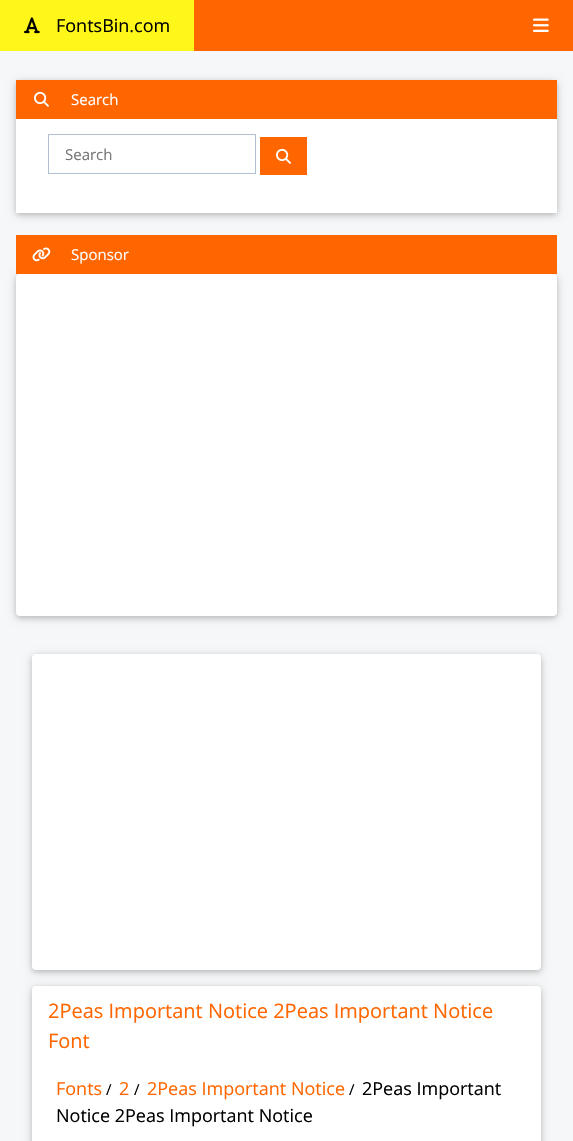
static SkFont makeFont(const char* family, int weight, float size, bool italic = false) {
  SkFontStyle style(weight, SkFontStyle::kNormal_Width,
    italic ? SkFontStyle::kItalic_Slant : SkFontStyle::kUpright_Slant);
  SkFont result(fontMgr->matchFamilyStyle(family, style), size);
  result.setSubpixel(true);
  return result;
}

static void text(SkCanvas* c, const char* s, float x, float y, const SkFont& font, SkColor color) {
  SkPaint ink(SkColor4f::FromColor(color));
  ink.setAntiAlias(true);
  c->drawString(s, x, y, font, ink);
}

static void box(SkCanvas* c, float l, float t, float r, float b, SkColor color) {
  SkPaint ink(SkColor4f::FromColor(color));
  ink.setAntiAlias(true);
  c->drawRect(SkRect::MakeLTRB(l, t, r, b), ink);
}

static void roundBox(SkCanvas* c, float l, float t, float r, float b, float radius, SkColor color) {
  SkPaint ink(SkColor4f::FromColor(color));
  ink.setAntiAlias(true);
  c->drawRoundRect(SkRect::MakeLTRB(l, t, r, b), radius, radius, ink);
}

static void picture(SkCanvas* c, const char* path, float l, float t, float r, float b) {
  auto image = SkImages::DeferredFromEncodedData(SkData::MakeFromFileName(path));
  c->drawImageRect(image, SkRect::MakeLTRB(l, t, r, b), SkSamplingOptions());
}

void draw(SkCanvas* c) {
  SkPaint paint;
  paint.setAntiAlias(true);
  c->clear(0xfff5f7f8);
  box(c, 194, 0, 573, 51, 0xffff6600);
  box(c, 0, 0, 194, 51, 0xfffff719);
  picture(c, "img_01.png", 24, 17, 40, 34);
  SkFont face1 = makeFont("Open Sans", 400, 18);
  text(c, "FontsBin.com", 56, 32, face1, 0xff000000);
  picture(c, "img_02.png", 533, 18, 549, 32);
  paint.setColor(0x1f000000);
  paint.setMaskFilter(SkMaskFilter::MakeBlur(kNormal_SkBlurStyle, 5));
  c->drawRoundRect(SkRect::MakeLTRB(16, 82, 557, 215), 4, 4, paint);
  paint.setMaskFilter(nullptr);
  paint.setColor(0x29000000);
  paint.setMaskFilter(SkMaskFilter::MakeBlur(kNormal_SkBlurStyle, 2.5f));
  c->drawRoundRect(SkRect::MakeLTRB(16, 82, 557, 215), 4, 4, paint);
  paint.setMaskFilter(nullptr);
  box(c, 16, 119, 557, 213, 0xffffffff);
  box(c, 16, 80, 557, 119, 0xffff6600);
  picture(c, "img_03.png", 34, 91, 49, 107);
  SkFont face2 = makeFont("Open Sans", 400, 15);
  text(c, "Search", 71, 105, face2, 0xffffffff);
  paint.setStyle(SkPaint::kStroke_Style);
  paint.setStrokeWidth(1);
  paint.setColor(0xffb0c0d0);
  c->drawRect(SkRect::MakeLTRB(48.5f, 134.5f, 255.5f, 173.5f), paint);
  text(c, "Search", 65, 160, face2, 0xff757575);
  box(c, 260, 137, 307, 175, 0xffff6600);
  picture(c, "img_03.png", 276, 148, 291, 164);
  paint.setStyle(SkPaint::kFill_Style);
  paint.setColor(0x1f000000);
  paint.setMaskFilter(SkMaskFilter::MakeBlur(kNormal_SkBlurStyle, 5));
  c->drawRoundRect(SkRect::MakeLTRB(16, 276, 557, 618), 4, 4, paint);
  paint.setMaskFilter(nullptr);
  paint.setColor(0x29000000);
  paint.setMaskFilter(SkMaskFilter::MakeBlur(kNormal_SkBlurStyle, 2.5f));
  c->drawRoundRect(SkRect::MakeLTRB(16, 276, 557, 618), 4, 4, paint);
  paint.setMaskFilter(nullptr);
  box(c, 16, 235, 557, 274, 0xffff6600);
  picture(c, "img_04.png", 32, 247, 51, 262);
  text(c, "Sponsor", 71, 260, face2, 0xffffffff);
  roundBox(c, 16, 274, 557, 616, 4, 0xffffffff);
  paint.setColor(0x1f000000);
  paint.setMaskFilter(SkMaskFilter::MakeBlur(kNormal_SkBlurStyle, 5));
  c->drawRoundRect(SkRect::MakeLTRB(32, 656, 541, 972), 4, 4, paint);
  paint.setMaskFilter(nullptr);
  paint.setColor(0x29000000);
  paint.setMaskFilter(SkMaskFilter::MakeBlur(kNormal_SkBlurStyle, 2.5f));
  c->drawRoundRect(SkRect::MakeLTRB(32, 656, 541, 972), 4, 4, paint);
  paint.setMaskFilter(nullptr);
  roundBox(c, 32, 654, 541, 970, 4, 0xffffffff);
  paint.setColor(0x1f000000);
  paint.setMaskFilter(SkMaskFilter::MakeBlur(kNormal_SkBlurStyle, 5));
  c->drawRoundRect(SkRect::MakeLTRB(32, 988, 541, 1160), 4, 4, paint);
  paint.setMaskFilter(nullptr);
  paint.setColor(0x29000000);
  paint.setMaskFilter(SkMaskFilter::MakeBlur(kNormal_SkBlurStyle, 2.5f));
  c->drawRoundRect(SkRect::MakeLTRB(32, 988, 541, 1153), 4, 4, paint);
  paint.setMaskFilter(nullptr);
  roundBox(c, 32, 986, 541, 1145, 4, 0xffffffff);
  SkFont face3 = makeFont("Open Sans", 400, 20);
  text(c, "2Peas Important Notice 2Peas Important Notice", 48, 1018, face3, 0xffff6600);
  text(c, "Font", 48, 1048, face3, 0xffff6600);
  text(c, "Fonts", 56, 1095, face1, 0xffff6600);
  text(c, "/", 106, 1095, face2, 0xff000000);
  text(c, "2", 119, 1095, face1, 0xffff6600);
  text(c, "/", 134, 1095, face2, 0xff000000);
  text(c, "2Peas Important Notice", 147, 1095, face1, 0xffff6600);
  text(c, "/", 349, 1095, face2, 0xff000000);
  text(c, "2Peas Important", 362, 1095, face1, 0xff000000);
  text(c, "Notice 2Peas Important Notice", 56, 1122, face1, 0xff000000);
}
